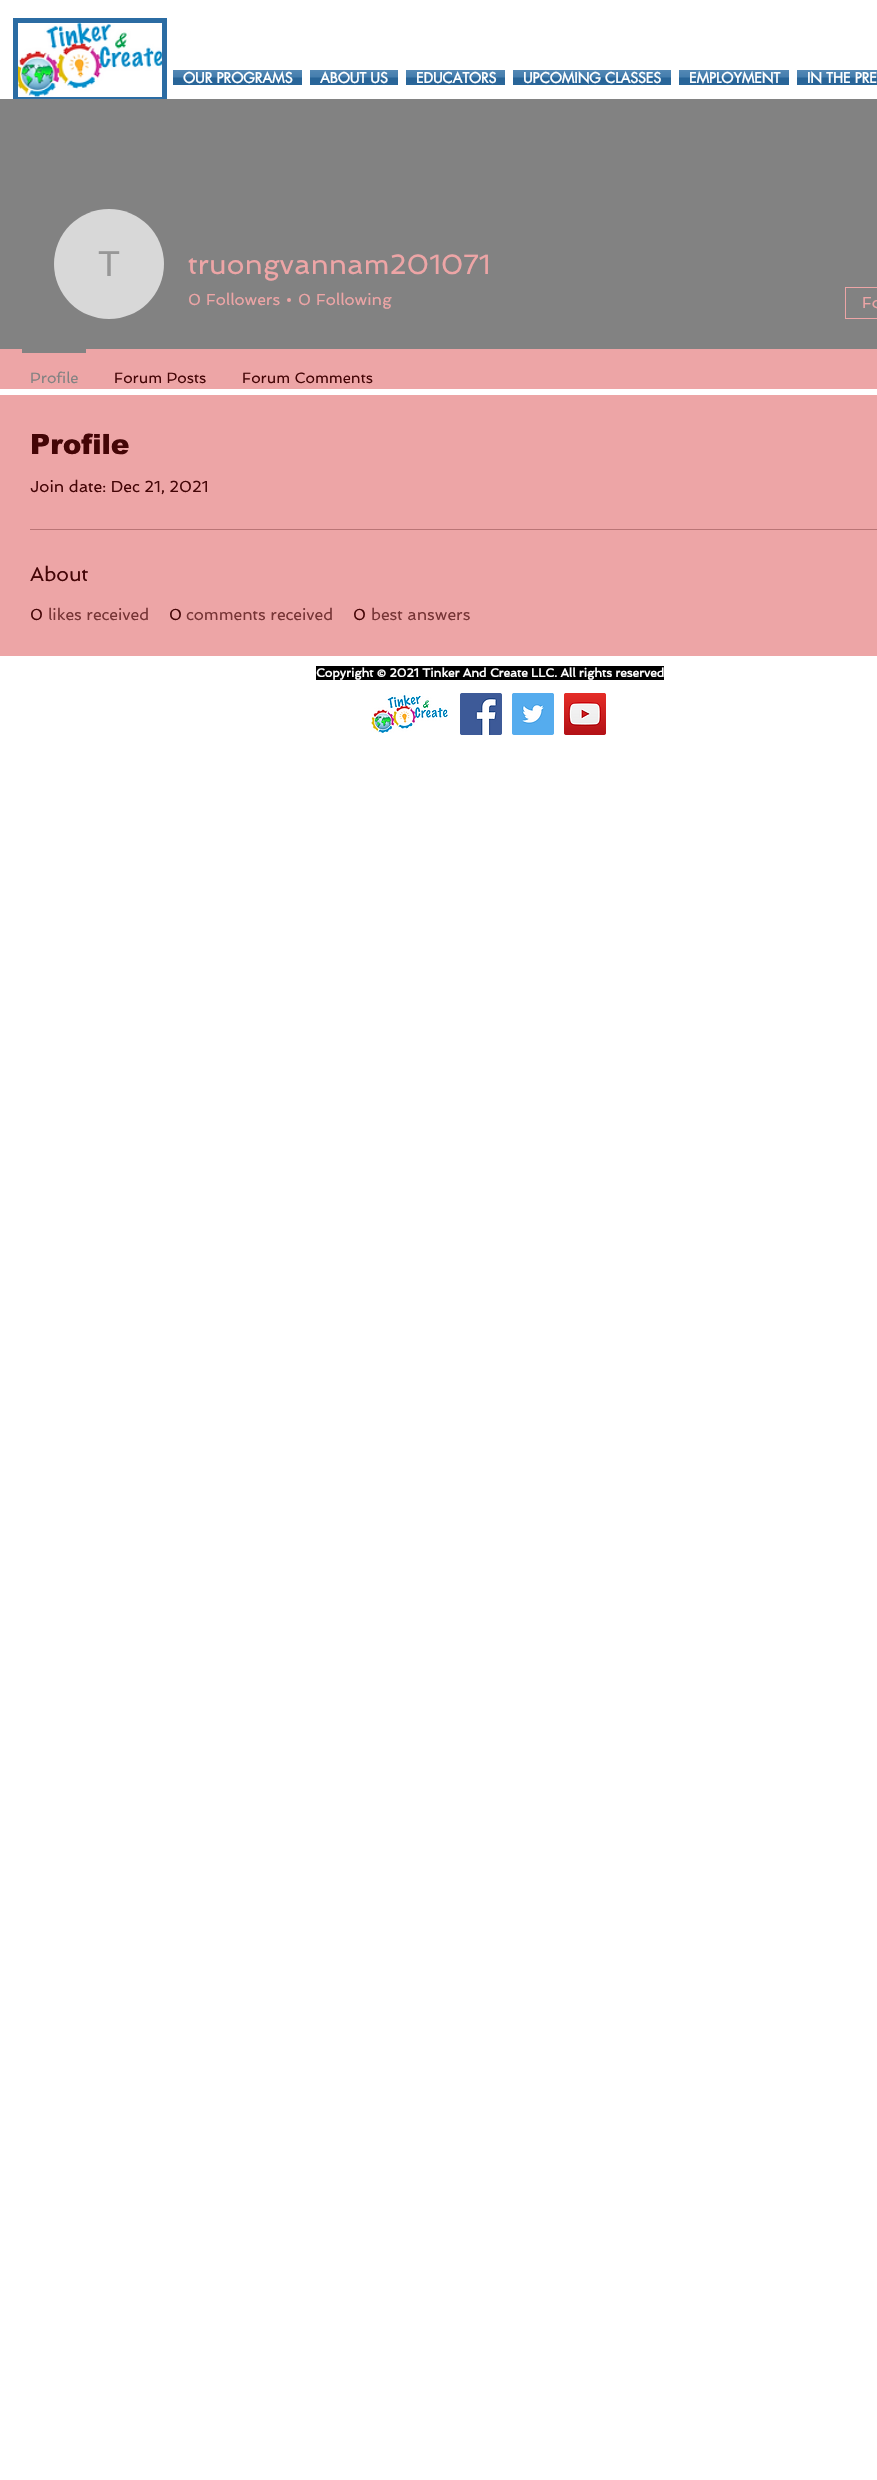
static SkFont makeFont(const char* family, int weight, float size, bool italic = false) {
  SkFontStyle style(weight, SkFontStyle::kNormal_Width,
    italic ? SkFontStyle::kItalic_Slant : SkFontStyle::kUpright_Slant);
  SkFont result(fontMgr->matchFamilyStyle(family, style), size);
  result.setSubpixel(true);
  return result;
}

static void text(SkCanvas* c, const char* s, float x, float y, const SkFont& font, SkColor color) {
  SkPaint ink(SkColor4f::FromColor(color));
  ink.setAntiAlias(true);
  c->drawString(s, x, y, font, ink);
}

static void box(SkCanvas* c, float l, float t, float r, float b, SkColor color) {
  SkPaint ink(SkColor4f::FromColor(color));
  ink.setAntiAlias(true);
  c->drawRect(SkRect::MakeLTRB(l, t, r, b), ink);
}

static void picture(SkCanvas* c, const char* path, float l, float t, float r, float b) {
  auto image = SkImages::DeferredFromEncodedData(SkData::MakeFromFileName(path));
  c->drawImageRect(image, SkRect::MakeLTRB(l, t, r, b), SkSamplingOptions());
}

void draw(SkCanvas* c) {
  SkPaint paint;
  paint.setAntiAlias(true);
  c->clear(0xffffffff);
  box(c, 173, 70, 302, 85, 0xff2b6ca3);
  picture(c, "img_01.png", 173, 70, 302, 85);
  SkFont face1 = makeFont("futura", 700, 14);
  text(c, "OUR PROGRAMS", 183, 83, face1, 0xffffffff);
  box(c, 310, 70, 398, 85, 0xff2b6ca3);
  picture(c, "img_02.png", 310, 70, 398, 85);
  text(c, "ABOUT US", 320, 83, face1, 0xffffffff);
  box(c, 406, 70, 505, 85, 0xff2b6ca3);
  picture(c, "img_03.png", 406, 70, 505, 85);
  text(c, "EDUCATORS", 416, 83, face1, 0xffffffff);
  box(c, 513, 70, 671, 85, 0xff2b6ca3);
  picture(c, "img_04.png", 513, 70, 671, 85);
  text(c, "UPCOMING CLASSES", 523, 83, face1, 0xffffffff);
  box(c, 679, 70, 789, 85, 0xff2b6ca3);
  picture(c, "img_05.png", 679, 70, 789, 85);
  text(c, "EMPLOYMENT", 689, 83, face1, 0xffffffff);
  box(c, 797, 70, 877, 85, 0xff2b6ca3);
  picture(c, "img_06.png", 797, 70, 877, 85);
  text(c, "IN THE PRE", 807, 83, face1, 0xffffffff);
  box(c, 13, 18, 167, 99, 0xff2b6ca3);
  picture(c, "img_07.png", 18, 23, 162, 97);
  box(c, 0, 99, 877, 349, 0xff828282);
  paint.setColor(0xffd8d8d8);
  c->drawCircle(109, 264, 55, paint);
  SkFont face2 = makeFont("Liberation Sans", 400, 36);
  text(c, "T", 98, 276, face2, 0xff979797);
  SkFont face3 = makeFont("Spinnaker", 400, 28);
  text(c, "truongvannam201071", 188, 274, face3, 0xffeda5a6);
  SkFont face4 = makeFont("Spinnaker", 400, 16);
  text(c, "0", 188, 305, face4, 0xffeda5a6);
  text(c, "Followers", 206, 305, face4, 0xffeda5a6);
  paint.setColor(0xffeda5a6);
  c->drawCircle(289, 300, 2, paint);
  text(c, "0", 298, 305, face4, 0xffeda5a6);
  text(c, "Following", 316, 305, face4, 0xffeda5a6);
  paint.setStyle(SkPaint::kStroke_Style);
  paint.setStrokeWidth(1);
  c->drawRect(SkRect::MakeLTRB(845.5f, 287.5f, 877.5f, 318.5f), paint);
  text(c, "Fo", 862, 308, face4, 0xffeda5a6);
  box(c, 0, 349, 877, 389, 0xffeda5a6);
  box(c, 22, 349, 86, 353, 0xff828282);
  SkFont face5 = makeFont("Spinnaker", 400, 15);
  text(c, "Profile", 30, 383, face5, 0xff828282);
  text(c, "Forum Posts", 114, 383, face5, 0xff440506);
  text(c, "Forum Comments", 242, 383, face5, 0xff440506);
  box(c, 0, 395, 877, 656, 0xffeda5a6);
  SkFont face6 = makeFont("arial", 900, 28);
  text(c, "Profile", 30, 454, face6, 0xff440506);
  text(c, "Join date: Dec 21, 2021", 30, 492, face4, 0xff440506);
  box(c, 30, 529, 877, 530, 0xffba7576);
  SkFont face7 = makeFont("Spinnaker", 400, 20);
  text(c, "About", 30, 581, face7, 0xff440506);
  text(c, "0", 30, 620, face4, 0xff440506);
  text(c, "likes received", 48, 620, face4, 0xff773536);
  text(c, "0", 169, 620, face4, 0xff440506);
  text(c, "comments received", 186, 620, face4, 0xff773536);
  text(c, "0", 353, 620, face4, 0xff440506);
  text(c, "best answers", 371, 620, face4, 0xff773536);
  box(c, 316, 666, 664, 680, 0xff000000);
  SkFont face8 = makeFont("Spinnaker", 700, 12);
  text(c, "Copyright © 2021 Tinker And Create LLC. All rights reserved", 316, 677, face8, 0xffffffff);
  picture(c, "img_08.png", 371, 693, 449, 733);
  picture(c, "img_09.png", 460, 693, 502, 735);
  picture(c, "img_10.png", 512, 693, 554, 735);
  picture(c, "img_11.png", 564, 693, 606, 735);
}
